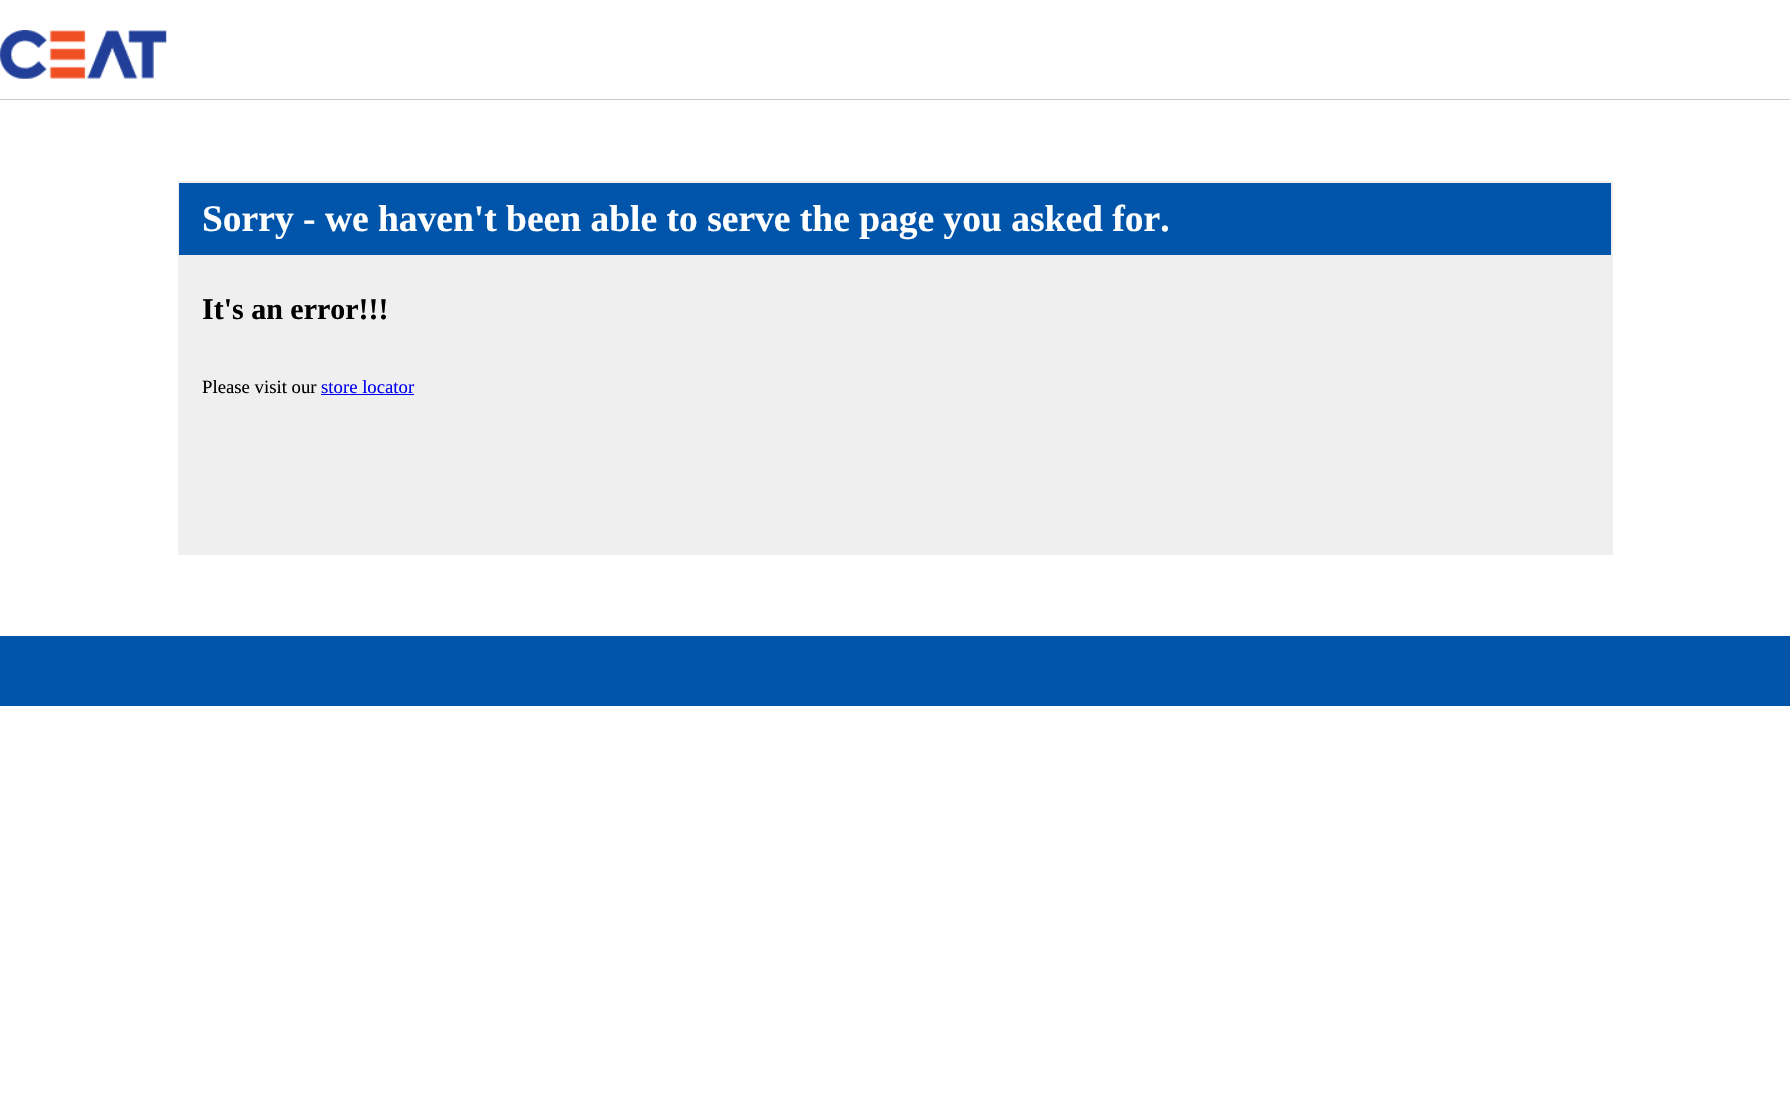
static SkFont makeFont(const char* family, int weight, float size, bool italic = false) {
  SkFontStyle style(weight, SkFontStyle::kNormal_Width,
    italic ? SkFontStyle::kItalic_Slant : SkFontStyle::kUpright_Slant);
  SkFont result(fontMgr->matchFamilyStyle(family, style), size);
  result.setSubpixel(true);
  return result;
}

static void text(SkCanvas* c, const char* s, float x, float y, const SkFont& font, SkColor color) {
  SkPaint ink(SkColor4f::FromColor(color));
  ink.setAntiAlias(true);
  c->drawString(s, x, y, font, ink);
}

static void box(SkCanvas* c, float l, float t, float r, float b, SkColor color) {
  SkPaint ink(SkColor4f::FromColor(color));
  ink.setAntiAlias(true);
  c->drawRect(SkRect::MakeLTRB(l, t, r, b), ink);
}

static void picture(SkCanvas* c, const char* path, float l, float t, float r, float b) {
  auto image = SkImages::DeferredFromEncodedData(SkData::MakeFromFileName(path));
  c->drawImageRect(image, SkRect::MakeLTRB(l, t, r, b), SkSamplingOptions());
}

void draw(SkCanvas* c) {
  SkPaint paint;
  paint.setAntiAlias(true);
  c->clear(0xffffffff);
  box(c, 0, 99, 1790, 100, 0xffcccccc);
  picture(c, "img_01.png", 0, 30, 167, 79);
  box(c, 178, 181, 1613, 555, 0xffefefef);
  box(c, 179, 183, 1611, 255, 0xff0055aa);
  SkFont face1 = makeFont("Liberation Serif", 700, 37.5f);
  text(c, "Sorry - we haven't been able to serve the page you asked for.", 202, 231, face1, 0xffffffff);
  SkFont face2 = makeFont("Liberation Serif", 700, 30);
  text(c, "It's an error!!!", 202, 319, face2, 0xff000000);
  SkFont face3 = makeFont("Liberation Serif", 400, 18.75f);
  text(c, "Please visit our", 202, 393, face3, 0xff000000);
  text(c, "store locator", 321, 393, face3, 0xff0000ee);
  box(c, 321, 394, 414, 395, 0xff0000ee);
  box(c, 0, 636, 1790, 706, 0xff0055aa);
}
